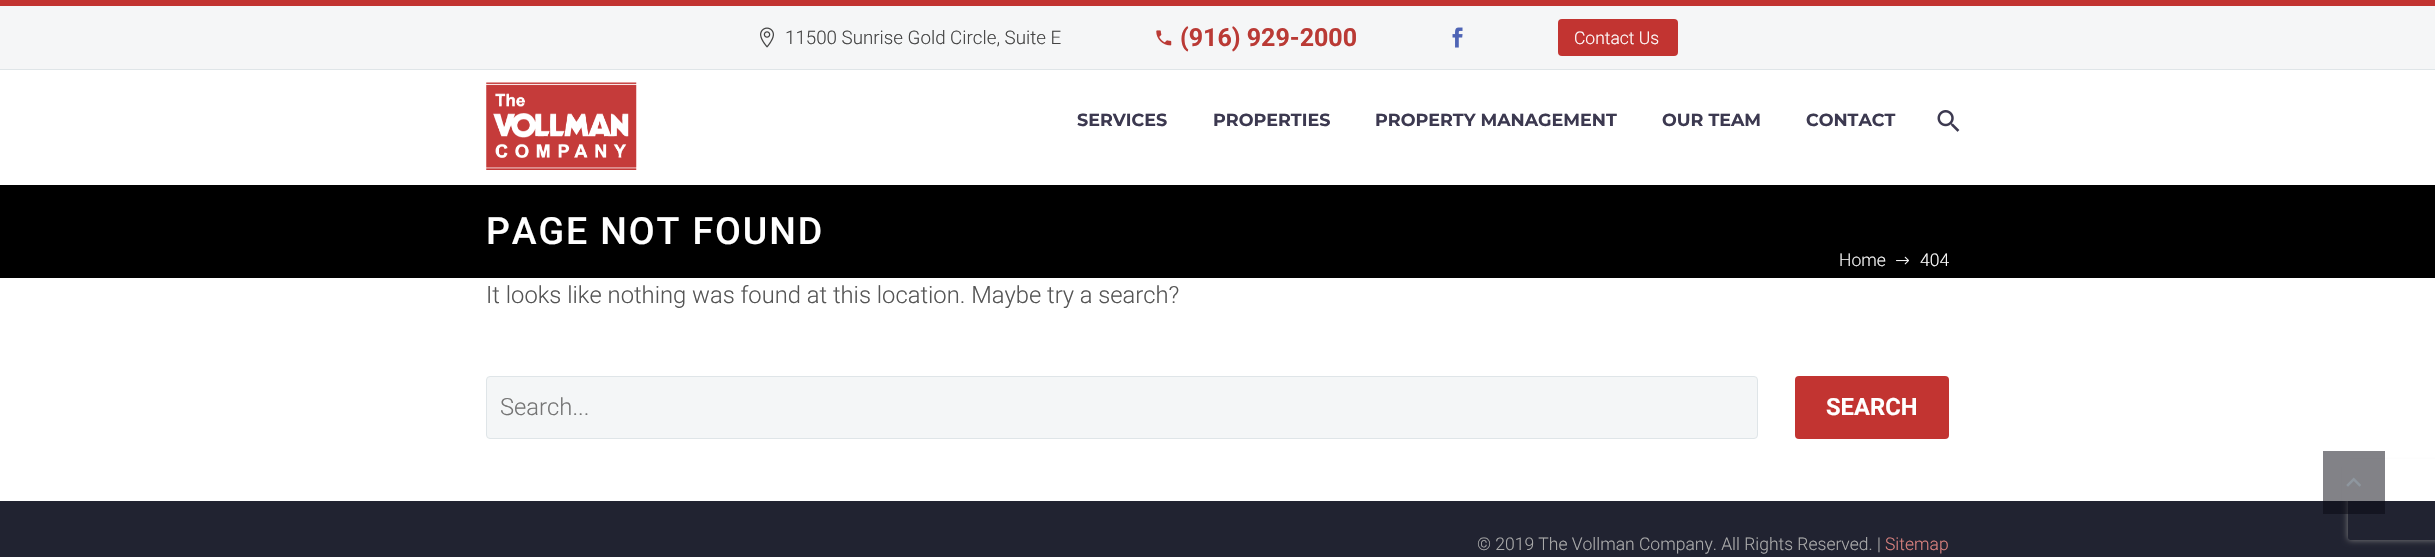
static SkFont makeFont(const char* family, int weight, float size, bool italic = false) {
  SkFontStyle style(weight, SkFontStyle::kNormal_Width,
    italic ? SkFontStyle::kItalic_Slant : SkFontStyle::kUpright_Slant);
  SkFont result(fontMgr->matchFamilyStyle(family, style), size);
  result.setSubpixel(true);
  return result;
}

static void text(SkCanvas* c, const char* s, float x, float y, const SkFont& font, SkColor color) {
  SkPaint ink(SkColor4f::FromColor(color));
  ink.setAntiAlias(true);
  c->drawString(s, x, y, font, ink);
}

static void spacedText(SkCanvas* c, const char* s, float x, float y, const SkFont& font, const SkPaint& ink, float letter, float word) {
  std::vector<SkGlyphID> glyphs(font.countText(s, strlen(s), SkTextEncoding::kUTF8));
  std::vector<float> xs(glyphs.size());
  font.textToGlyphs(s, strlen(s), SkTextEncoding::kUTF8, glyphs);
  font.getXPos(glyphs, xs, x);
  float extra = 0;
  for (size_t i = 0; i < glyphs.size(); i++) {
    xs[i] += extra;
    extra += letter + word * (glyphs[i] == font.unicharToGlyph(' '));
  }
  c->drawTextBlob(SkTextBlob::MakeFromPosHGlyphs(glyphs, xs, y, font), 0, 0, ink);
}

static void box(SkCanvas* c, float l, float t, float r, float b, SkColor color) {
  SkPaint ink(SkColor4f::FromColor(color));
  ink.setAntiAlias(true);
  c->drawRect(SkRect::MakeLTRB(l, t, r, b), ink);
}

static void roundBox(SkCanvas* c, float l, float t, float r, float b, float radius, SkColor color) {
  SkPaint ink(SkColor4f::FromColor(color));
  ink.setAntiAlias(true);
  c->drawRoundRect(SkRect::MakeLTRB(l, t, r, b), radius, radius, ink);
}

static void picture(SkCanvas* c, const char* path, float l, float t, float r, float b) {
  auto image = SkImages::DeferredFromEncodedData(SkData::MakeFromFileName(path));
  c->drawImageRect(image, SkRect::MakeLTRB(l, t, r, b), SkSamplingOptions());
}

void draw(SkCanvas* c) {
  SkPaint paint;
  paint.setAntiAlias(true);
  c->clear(0xffffffff);
  box(c, 0, 6, 2435, 69, 0xfff5f6f7);
  box(c, 0, 0, 2435, 6, 0xffc23431);
  box(c, 0, 69, 2435, 70, 0xffdfe5e8);
  picture(c, "img_01.png", 760, 27, 774, 48);
  SkFont face1 = makeFont("Roboto", 300, 18.75f);
  text(c, "11500 Sunrise Gold Circle, Suite E", 785, 44, face1, 0xff444444);
  picture(c, "img_02.png", 1156, 30, 1172, 46);
  SkFont face2 = makeFont("Roboto", 700, 25);
  text(c, "(916) 929-2000", 1180, 46, face2, 0xffba3a35);
  picture(c, "img_03.png", 1452, 27, 1463, 48);
  roundBox(c, 1558, 19, 1678, 56, 4, 0xffc23431);
  SkFont face3 = makeFont("Roboto", 300, 17.5f);
  text(c, "Contact Us", 1574, 44, face3, 0xffffffff);
  picture(c, "img_04.png", 486, 82, 637, 170);
  SkFont face4 = makeFont("Montserrat", 700, 17.5f);
  text(c, "SERVICES", 1077, 126, face4, 0xff3c3950);
  text(c, "PROPERTIES", 1213, 126, face4, 0xff3c3950);
  text(c, "PROPERTY MANAGEMENT", 1375, 126, face4, 0xff3c3950);
  text(c, "OUR TEAM", 1662, 126, face4, 0xff3c3950);
  text(c, "CONTACT", 1806, 126, face4, 0xff3c3950);
  picture(c, "img_05.png", 1937, 110, 1960, 132);
  box(c, 0, 185, 2435, 278, 0xff000000);
  SkFont face5 = makeFont("Roboto", 500, 37.5f);
  paint.setColor(0xffffffff);
  spacedText(c, "PAGE NOT FOUND", 486, 244, face5, paint, 1.9f, 0);
  text(c, "Home", 1839, 266, face3, 0xfff3f3f3);
  picture(c, "img_06.png", 1896, 256, 1909, 265);
  text(c, "404", 1920, 266, face3, 0xffffffff);
  box(c, 0, 501, 2435, 557, 0xff212331);
  c->save();
  c->clipPath(SkPathBuilder(SkPathFillType::kEvenOdd).moveTo(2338, 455).lineTo(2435, 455).lineTo(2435, 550).lineTo(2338, 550).close().moveTo(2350.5f, 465).lineTo(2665.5f, 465).cubicTo(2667, 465, 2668, 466, 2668, 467.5f).lineTo(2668, 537.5f).cubicTo(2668, 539, 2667, 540, 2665.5f, 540).lineTo(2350.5f, 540).cubicTo(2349, 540, 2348, 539, 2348, 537.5f).lineTo(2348, 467.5f).cubicTo(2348, 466, 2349, 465, 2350.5f, 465).close().detach(), true);
  paint.setColor(0xff808080);
  paint.setMaskFilter(SkMaskFilter::MakeBlur(kNormal_SkBlurStyle, 3));
  c->drawRoundRect(SkRect::MakeLTRB(2348, 465, 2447, 540), 2.5f, 2.5f, paint);
  paint.setMaskFilter(nullptr);
  c->restore();
  box(c, 2342, 459, 2435, 501, 0xffffffff);
  SkFont face6 = makeFont("Roboto", 300, 23.75f);
  text(c, "It looks like nothing was found at this location. Maybe try a search?", 486, 303, face6, 0xff555555);
  paint.setColor(0xfff4f6f7);
  c->drawRoundRect(SkRect::MakeLTRB(486.5f, 376.5f, 1757.5f, 438.5f), 3.5f, 3.5f, paint);
  paint.setStyle(SkPaint::kStroke_Style);
  paint.setStrokeWidth(1);
  paint.setColor(0xffdfe5e8);
  c->drawRoundRect(SkRect::MakeLTRB(486.5f, 376.5f, 1757.5f, 438.5f), 3.5f, 3.5f, paint);
  text(c, "Search...", 500, 415, face6, 0xff757575);
  roundBox(c, 1795, 376, 1949, 439, 4, 0xffc23431);
  SkFont face7 = makeFont("Roboto", 700, 23.75f);
  text(c, "SEARCH", 1826, 415, face7, 0xffffffff);
  box(c, 2323, 451, 2385, 514, 0x8006060f);
  picture(c, "img_07.png", 2346, 477, 2361, 487);
  text(c, "© 2019 The Vollman Company. All Rights Reserved. |", 1477, 550, face3, 0xffaaaaaa);
  text(c, "Sitemap", 1885, 550, face3, 0xffda817e);
}
